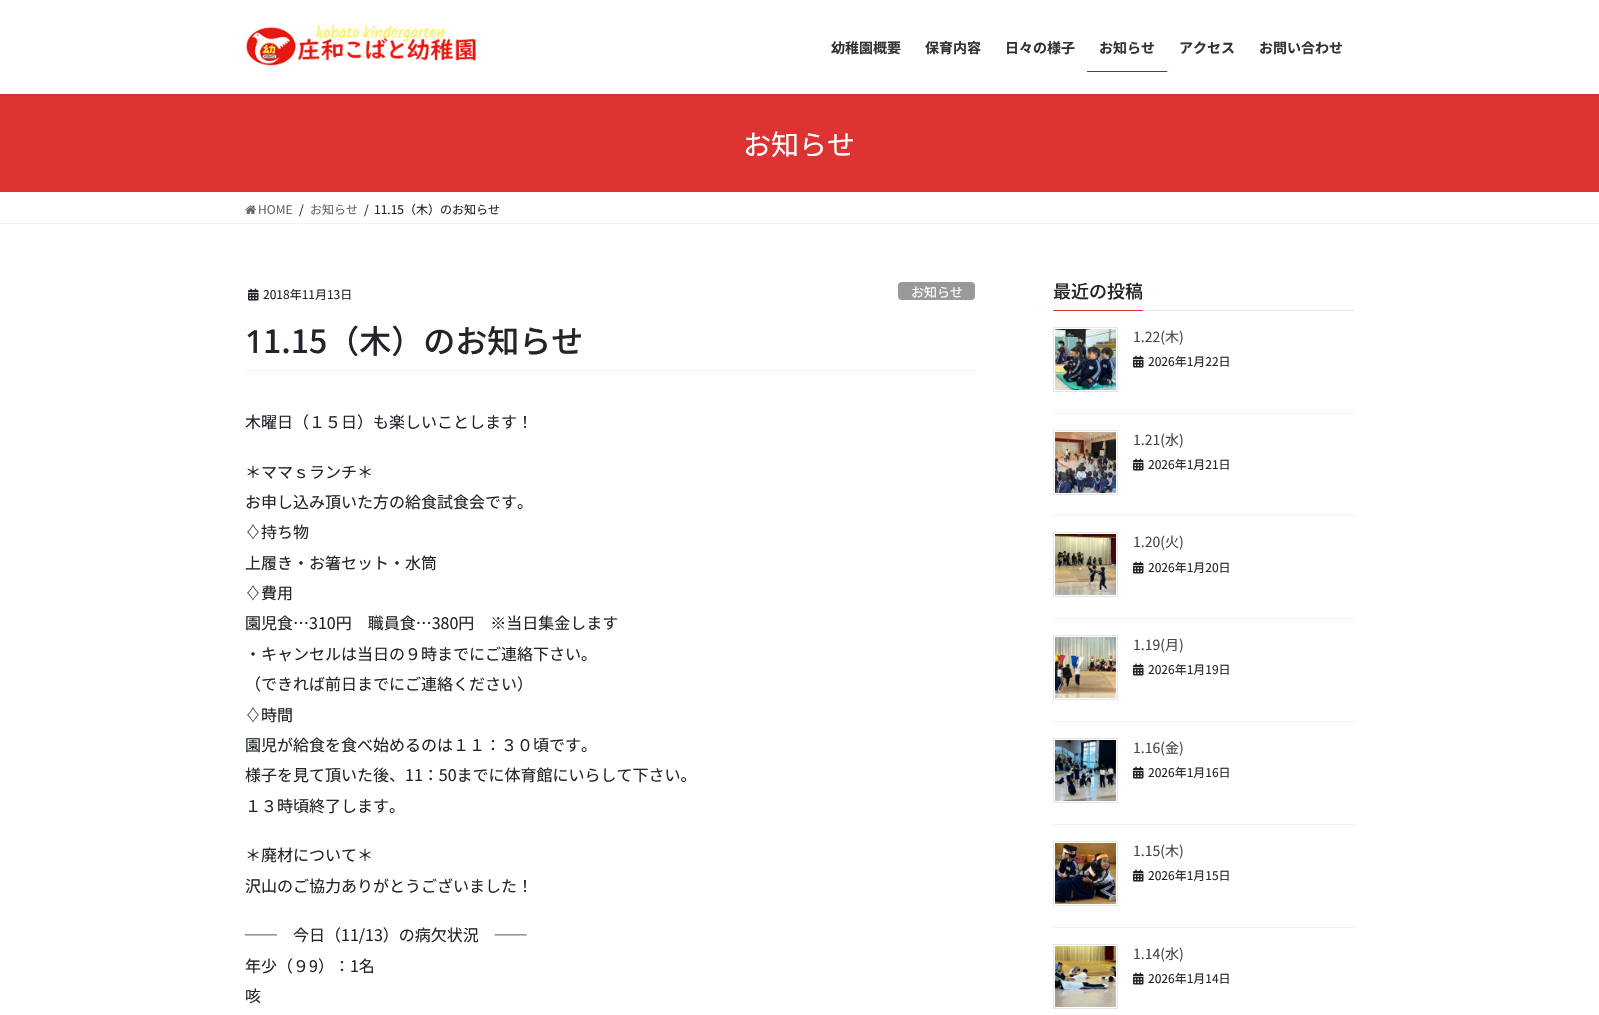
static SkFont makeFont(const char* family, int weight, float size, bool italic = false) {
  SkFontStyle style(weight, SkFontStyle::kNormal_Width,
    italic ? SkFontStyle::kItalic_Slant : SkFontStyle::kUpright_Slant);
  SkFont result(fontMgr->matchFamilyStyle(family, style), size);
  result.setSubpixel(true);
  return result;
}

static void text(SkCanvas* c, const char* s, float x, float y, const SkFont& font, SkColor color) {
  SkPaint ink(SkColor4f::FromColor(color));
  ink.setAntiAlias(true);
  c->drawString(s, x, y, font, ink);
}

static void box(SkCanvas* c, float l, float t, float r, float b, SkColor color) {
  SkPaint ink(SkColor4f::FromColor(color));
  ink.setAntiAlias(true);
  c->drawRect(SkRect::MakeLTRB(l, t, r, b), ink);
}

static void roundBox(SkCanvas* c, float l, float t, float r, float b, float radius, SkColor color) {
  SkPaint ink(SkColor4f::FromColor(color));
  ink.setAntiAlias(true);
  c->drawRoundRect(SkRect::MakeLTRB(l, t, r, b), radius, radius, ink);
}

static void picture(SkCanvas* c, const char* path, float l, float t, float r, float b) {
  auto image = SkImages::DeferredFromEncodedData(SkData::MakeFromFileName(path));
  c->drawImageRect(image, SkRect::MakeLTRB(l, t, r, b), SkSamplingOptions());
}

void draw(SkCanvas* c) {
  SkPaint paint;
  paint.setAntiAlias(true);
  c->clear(0xffffffff);
  box(c, 0, 94, 1599, 192, 0xffdd3333);
  c->save();
  c->clipRect(SkRect::MakeLTRB(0, 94, 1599, 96));
  paint.setColor(0x1a000000);
  paint.setMaskFilter(SkMaskFilter::MakeBlur(kNormal_SkBlurStyle, 1.5f));
  c->drawRect(SkRect::MakeLTRB(0, 1, 1599, 95), paint);
  paint.setMaskFilter(nullptr);
  c->restore();
  picture(c, "img_01.png", 246, 25, 476, 66);
  SkFont face1 = makeFont("Noto Sans JP", 700, 14);
  text(c, "幼稚園概要", 831, 53, face1, 0xff333333);
  text(c, "保育内容", 925, 53, face1, 0xff333333);
  text(c, "日々の様子", 1005, 53, face1, 0xff333333);
  text(c, "お知らせ", 1099, 53, face1, 0xff333333);
  box(c, 1087, 71, 1167, 72, 0xffb71800);
  text(c, "アクセス", 1179, 53, face1, 0xff333333);
  text(c, "お問い合わせ", 1259, 53, face1, 0xff333333);
  SkFont face2 = makeFont("Noto Sans JP", 400, 28);
  text(c, "お知らせ", 743, 155, face2, 0xffffffff);
  box(c, 0, 223, 1599, 224, 0xfff2f2f2);
  picture(c, "img_02.png", 245, 205, 256, 214);
  SkFont face3 = makeFont("Noto Sans JP", 400, 12);
  text(c, "HOME", 258, 214, face3, 0xff666666);
  text(c, "/", 299, 214, face3, 0xff212529);
  text(c, "お知らせ", 310, 214, face3, 0xff666666);
  text(c, "/", 364, 214, face3, 0xff212529);
  text(c, "11.15（木）のお知らせ", 374, 214, face3, 0xff212529);
  box(c, 245, 370, 975, 371, 0xfff2f2f2);
  picture(c, "img_03.png", 248, 288, 259, 301);
  text(c, "2018年11月13日", 263, 299, face3, 0xff212529);
  roundBox(c, 898, 282, 975, 300, 4, 0xff999999);
  SkFont face4 = makeFont("Noto Sans JP", 400, 13);
  text(c, "お知らせ", 911, 297, face4, 0xffffffff);
  SkFont face5 = makeFont("Noto Sans", 500, 32);
  text(c, "1", 245, 353, face5, 0xff212529);
  SkFont face6 = makeFont("Noto Sans JP", 500, 32);
  text(c, "1.15（木）のお知らせ", 263, 353, face6, 0xff212529);
  SkFont face7 = makeFont("Noto Sans JP", 400, 16);
  text(c, "木曜日（１５日）も楽しいことします！", 245, 428, face7, 0xff212529);
  text(c, "＊ママｓランチ＊", 245, 478, face7, 0xff212529);
  text(c, "お申し込み頂いた方の給食試食会です。", 245, 508, face7, 0xff212529);
  text(c, "♢持ち物", 245, 538, face7, 0xff212529);
  text(c, "上履き・お箸セット・水筒", 245, 569, face7, 0xff212529);
  text(c, "♢費用", 245, 599, face7, 0xff212529);
  text(c, "園児食…310円　職員食…380円　※当日集金します", 245, 629, face7, 0xff212529);
  text(c, "・キャンセルは当日の９時までにご連絡下さい。", 245, 660, face7, 0xff212529);
  text(c, "（できれば前日までにご連絡ください）", 245, 690, face7, 0xff212529);
  text(c, "♢時間", 245, 721, face7, 0xff212529);
  text(c, "園児が給食を食べ始めるのは１１：３０頃です。", 245, 751, face7, 0xff212529);
  text(c, "様子を見て頂いた後、11：50までに体育館にいらして下さい。", 245, 781, face7, 0xff212529);
  text(c, "１３時頃終了します。", 245, 812, face7, 0xff212529);
  text(c, "＊廃材について＊", 245, 861, face7, 0xff212529);
  text(c, "沢山のご協力ありがとうございました！", 245, 892, face7, 0xff212529);
  text(c, "──　今日（11/13）の病欠状況　──", 245, 941, face7, 0xff212529);
  text(c, "年少（９9）：1名", 245, 972, face7, 0xff212529);
  text(c, "咳", 245, 1002, face7, 0xff212529);
  box(c, 1143, 310, 1355, 311, 0xffe6e6e6);
  SkFont face8 = makeFont("Noto Sans JP", 500, 18);
  text(c, "最近の投稿", 1053, 298, face8, 0xff212529);
  box(c, 1053, 310, 1143, 311, 0xffdd3333);
  box(c, 1053, 413, 1355, 414, 0xfff2f2f2);
  paint.setStyle(SkPaint::kStroke_Style);
  paint.setStrokeWidth(1);
  paint.setColor(0xffe5e5e5);
  c->drawRect(SkRect::MakeLTRB(1053.5f, 327.5f, 1117.5f, 391.5f), paint);
  picture(c, "img_04.png", 1055, 329, 1116, 390);
  SkFont face9 = makeFont("Noto Sans JP", 400, 14);
  text(c, "1.22(木)", 1133, 342, face9, 0xff464646);
  picture(c, "img_03.png", 1133, 355, 1144, 368);
  text(c, "2026年1月22日", 1148, 366, face3, 0xff212529);
  box(c, 1053, 515, 1355, 516, 0xfff2f2f2);
  c->drawRect(SkRect::MakeLTRB(1053.5f, 430.5f, 1117.5f, 494.5f), paint);
  picture(c, "img_05.png", 1055, 432, 1116, 493);
  text(c, "1.21(水)", 1133, 445, face9, 0xff464646);
  picture(c, "img_03.png", 1133, 458, 1144, 471);
  text(c, "2026年1月21日", 1148, 469, face3, 0xff212529);
  box(c, 1053, 618, 1355, 619, 0xfff2f2f2);
  c->drawRect(SkRect::MakeLTRB(1053.5f, 532.5f, 1117.5f, 596.5f), paint);
  picture(c, "img_06.png", 1055, 534, 1116, 595);
  text(c, "1.20(火)", 1133, 547, face9, 0xff464646);
  picture(c, "img_03.png", 1133, 561, 1144, 574);
  text(c, "2026年1月20日", 1148, 572, face3, 0xff212529);
  box(c, 1053, 721, 1355, 722, 0xfff2f2f2);
  c->drawRect(SkRect::MakeLTRB(1053.5f, 635.5f, 1117.5f, 699.5f), paint);
  picture(c, "img_07.png", 1055, 637, 1116, 698);
  text(c, "1.19(月)", 1133, 650, face9, 0xff464646);
  picture(c, "img_03.png", 1133, 663, 1144, 676);
  text(c, "2026年1月19日", 1148, 674, face3, 0xff212529);
  box(c, 1053, 824, 1355, 825, 0xfff2f2f2);
  c->drawRect(SkRect::MakeLTRB(1053.5f, 738.5f, 1117.5f, 802.5f), paint);
  picture(c, "img_08.png", 1055, 740, 1116, 801);
  text(c, "1.16(金)", 1133, 753, face9, 0xff464646);
  picture(c, "img_03.png", 1133, 766, 1144, 779);
  text(c, "2026年1月16日", 1148, 777, face3, 0xff212529);
  box(c, 1053, 927, 1355, 928, 0xfff2f2f2);
  c->drawRect(SkRect::MakeLTRB(1053.5f, 841.5f, 1117.5f, 905.5f), paint);
  picture(c, "img_09.png", 1055, 843, 1116, 904);
  text(c, "1.15(木)", 1133, 856, face9, 0xff464646);
  picture(c, "img_03.png", 1133, 869, 1144, 882);
  text(c, "2026年1月15日", 1148, 880, face3, 0xff212529);
  c->drawRect(SkRect::MakeLTRB(1053.5f, 944.5f, 1117.5f, 1008.5f), paint);
  picture(c, "img_10.png", 1055, 946, 1116, 1007);
  text(c, "1.14(水)", 1133, 959, face9, 0xff464646);
  picture(c, "img_03.png", 1133, 972, 1144, 985);
  text(c, "2026年1月14日", 1148, 983, face3, 0xff212529);
}
